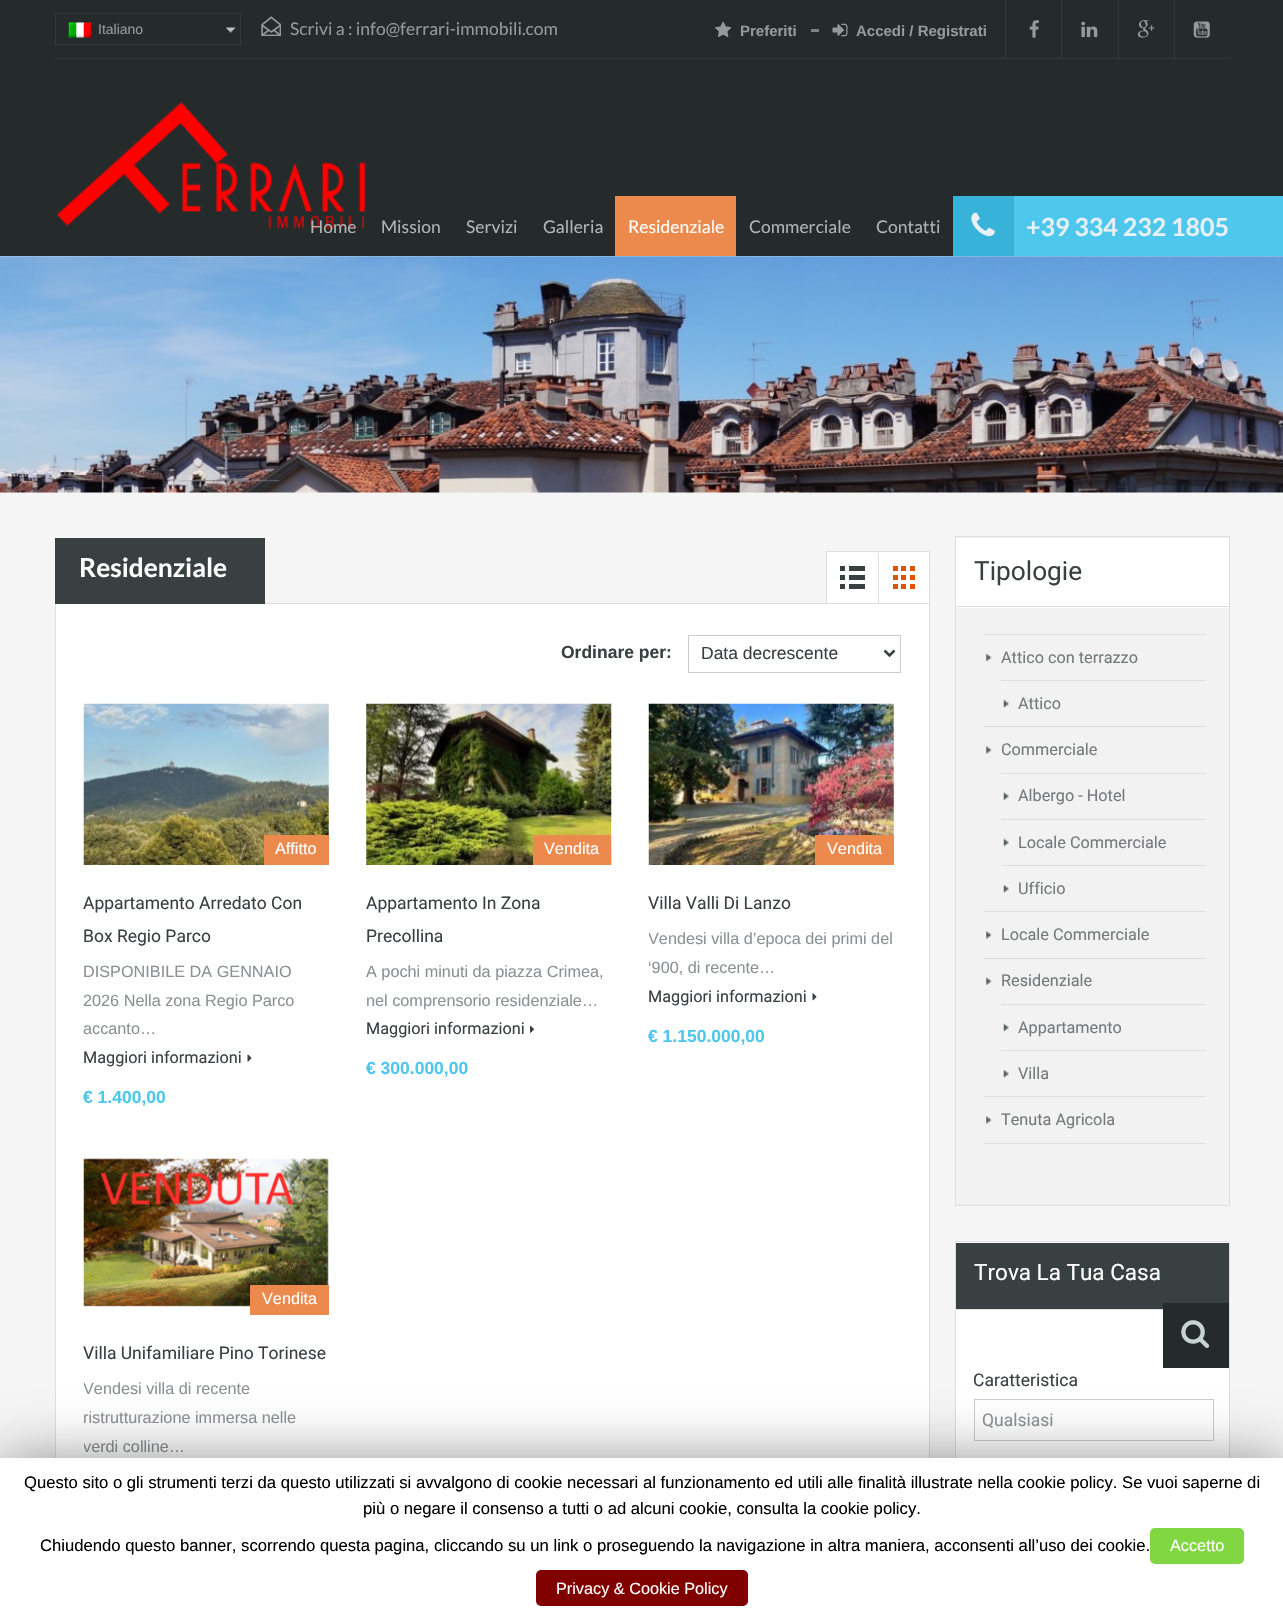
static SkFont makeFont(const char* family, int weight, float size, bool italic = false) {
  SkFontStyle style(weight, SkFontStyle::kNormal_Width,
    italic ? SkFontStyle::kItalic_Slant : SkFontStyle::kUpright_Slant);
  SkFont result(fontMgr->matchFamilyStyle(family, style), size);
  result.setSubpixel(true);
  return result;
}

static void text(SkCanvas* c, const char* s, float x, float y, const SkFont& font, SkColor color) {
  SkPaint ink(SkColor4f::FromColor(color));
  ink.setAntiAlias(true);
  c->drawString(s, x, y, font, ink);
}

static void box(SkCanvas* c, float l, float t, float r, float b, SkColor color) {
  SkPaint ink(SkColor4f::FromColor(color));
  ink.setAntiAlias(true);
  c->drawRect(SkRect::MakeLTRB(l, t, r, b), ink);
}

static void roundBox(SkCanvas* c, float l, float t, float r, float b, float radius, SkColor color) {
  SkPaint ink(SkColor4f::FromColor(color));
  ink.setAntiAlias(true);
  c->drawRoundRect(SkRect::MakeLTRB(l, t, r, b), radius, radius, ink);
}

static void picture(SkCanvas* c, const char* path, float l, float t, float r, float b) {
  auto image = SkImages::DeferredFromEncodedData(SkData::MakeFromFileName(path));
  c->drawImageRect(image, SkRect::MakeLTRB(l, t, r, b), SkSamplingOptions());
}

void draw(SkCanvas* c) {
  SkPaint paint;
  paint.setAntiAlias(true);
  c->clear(0xfff5f5f5);
  box(c, 0, 0, 1283, 256, 0xff252a2b);
  box(c, 55, 58, 1230, 59, 0xff343a3b);
  picture(c, "img_01.png", 226, 27, 236, 33);
  paint.setStyle(SkPaint::kStroke_Style);
  paint.setStrokeWidth(1);
  paint.setColor(0xff343a3b);
  c->drawRect(SkRect::MakeLTRB(55.5f, 13.5f, 240.5f, 44.5f), paint);
  picture(c, "img_02.png", 68, 22, 92, 38);
  SkFont face1 = makeFont("Liberation Sans", 400, 14);
  text(c, "Italiano", 98, 34, face1, 0xff929a9b);
  picture(c, "img_03.png", 261, 16, 281, 36);
  SkFont face2 = makeFont("Lato", 400, 17.5f);
  text(c, "Scrivi a : info@ferrari-immobili.com", 290, 35, face2, 0xff929a9b);
  picture(c, "img_04.png", 715, 21, 732, 37);
  SkFont face3 = makeFont("Liberation Sans", 700, 15);
  text(c, "Preferiti", 740, 36, face3, 0xff929a9b);
  box(c, 811, 29, 819, 32, 0xff7c8485);
  picture(c, "img_05.png", 832, 23, 848, 37);
  text(c, "Accedi / Registrati", 856, 36, face3, 0xff929a9b);
  box(c, 1005, 0, 1006, 58, 0xff343a3b);
  picture(c, "img_06.png", 1029, 20, 1039, 38);
  box(c, 1061, 0, 1062, 58, 0xff343a3b);
  picture(c, "img_07.png", 1081, 21, 1098, 38);
  box(c, 1118, 0, 1119, 58, 0xff343a3b);
  picture(c, "img_08.png", 1137, 20, 1155, 38);
  box(c, 1174, 0, 1175, 58, 0xff343a3b);
  picture(c, "img_09.png", 1193, 21, 1210, 38);
  picture(c, "img_10.png", 56, 102, 366, 229);
  text(c, "Home", 310, 233, face2, 0xffafb4b5);
  text(c, "Mission", 381, 233, face2, 0xffafb4b5);
  text(c, "Servizi", 466, 233, face2, 0xffafb4b5);
  text(c, "Galleria", 543, 233, face2, 0xffafb4b5);
  box(c, 615, 196, 736, 256, 0xffec894d);
  text(c, "Residenziale", 628, 233, face2, 0xffffffff);
  text(c, "Commerciale", 749, 233, face2, 0xffafb4b5);
  text(c, "Contatti", 876, 233, face2, 0xffafb4b5);
  box(c, 1014, 196, 1283, 256, 0xff4dc7ec);
  box(c, 953, 196, 1014, 256, 0xff37b3d9);
  picture(c, "img_11.png", 971, 212, 995, 237);
  SkFont face4 = makeFont("Lato", 700, 25);
  text(c, "+39 334 232 1805", 1026, 236, face4, 0xffe7eff7);
  picture(c, "img_12.png", 0, 256, 1283, 493);
  box(c, 929, 603, 930, 1458, 0xffdedede);
  box(c, 55, 603, 56, 1458, 0xffdedede);
  box(c, 56, 604, 929, 1458, 0xffffffff);
  box(c, 265, 603, 826, 604, 0xffdedede);
  box(c, 55, 538, 265, 604, 0xff394041);
  SkFont face5 = makeFont("Lato", 700, 26.25f);
  text(c, "Residenziale", 79, 577, face5, 0xffffffff);
  paint.setStyle(SkPaint::kFill_Style);
  paint.setColor(0xffffffff);
  c->drawRect(SkRect::MakeLTRB(826.5f, 551.5f, 929.5f, 603.5f), paint);
  paint.setStyle(SkPaint::kStroke_Style);
  paint.setColor(0xffdedede);
  c->drawRect(SkRect::MakeLTRB(826.5f, 551.5f, 929.5f, 603.5f), paint);
  box(c, 878, 553, 879, 603, 0xffdedede);
  picture(c, "img_13.png", 840, 566, 865, 589);
  picture(c, "img_14.png", 893, 566, 915, 589);
  SkFont face6 = makeFont("Liberation Sans", 700, 17.5f);
  text(c, "Ordinare per:", 561, 658, face6, 0xff394041);
  paint.setColor(0xffcccccc);
  c->drawRect(SkRect::MakeLTRB(688.5f, 635.5f, 900.5f, 672.5f), paint);
  paint.setStrokeWidth(2.5f);
  paint.setColor(0xff394041);
  c->drawPath(SkPathBuilder().moveTo(884.5f, 650.5f).lineTo(889.5f, 655.5f).lineTo(894.5f, 650.5f).detach(), paint);
  SkFont face7 = makeFont("Liberation Sans", 400, 17.5f);
  text(c, "Data decrescente", 701, 659, face7, 0xff394041);
  picture(c, "img_15.png", 83, 703, 329, 865);
  box(c, 264, 835, 329, 865, 0xffec894d);
  SkFont face8 = makeFont("Liberation Sans", 400, 16.25f);
  text(c, "Affitto", 275, 854, face8, 0xffffffff);
  SkFont face9 = makeFont("Roboto", 400, 17.5f);
  text(c, "Appartamento Arredato Con", 83, 909, face9, 0xff394041);
  text(c, "Box Regio Parco", 83, 942, face9, 0xff394041);
  text(c, "DISPONIBILE DA GENNAIO", 83, 977, face8, 0xff8b9293);
  text(c, "2026 Nella zona Regio Parco", 83, 1006, face8, 0xff8b9293);
  text(c, "accanto…", 83, 1034, face8, 0xff8b9293);
  SkFont face10 = makeFont("Roboto", 400, 16.25f);
  text(c, "Maggiori informazioni", 83, 1063, face10, 0xff394041);
  picture(c, "img_16.png", 247, 1054, 252, 1062);
  text(c, "€ 1.400,00", 83, 1103, face6, 0xff4dc7ec);
  picture(c, "img_17.png", 366, 703, 612, 865);
  box(c, 533, 835, 611, 865, 0xffec894d);
  text(c, "Vendita", 544, 854, face8, 0xffffffff);
  text(c, "Appartamento In Zona", 366, 909, face9, 0xff394041);
  text(c, "Precollina", 366, 942, face9, 0xff394041);
  text(c, "A pochi minuti da piazza Crimea,", 366, 977, face8, 0xff8b9293);
  text(c, "nel comprensorio residenziale…", 366, 1006, face8, 0xff8b9293);
  text(c, "Maggiori informazioni", 366, 1034, face10, 0xff394041);
  picture(c, "img_18.png", 530, 1025, 534, 1033);
  text(c, "€ 300.000,00", 366, 1074, face6, 0xff4dc7ec);
  picture(c, "img_19.png", 648, 703, 894, 865);
  box(c, 815, 835, 894, 865, 0xffec894d);
  text(c, "Vendita", 827, 854, face8, 0xffffffff);
  text(c, "Villa Valli Di Lanzo", 648, 909, face9, 0xff394041);
  c->save();
  c->clipRect(SkRect::MakeLTRB(649, 925, 894, 1011));
  text(c, "Vendesi villa d’epoca dei primi del", 648, 944, face8, 0xff8b9293);
  c->restore();
  text(c, "‘900, di recente…", 648, 973, face8, 0xff8b9293);
  text(c, "Maggiori informazioni", 648, 1002, face10, 0xff394041);
  picture(c, "img_20.png", 812, 993, 817, 1001);
  text(c, "€ 1.150.000,00", 648, 1042, face6, 0xff4dc7ec);
  picture(c, "img_21.png", 83, 1158, 329, 1307);
  box(c, 250, 1285, 329, 1315, 0xffec894d);
  text(c, "Vendita", 262, 1304, face8, 0xffffffff);
  text(c, "Villa Unifamiliare Pino Torinese", 83, 1359, face9, 0xff394041);
  c->save();
  c->clipRect(SkRect::MakeLTRB(84, 1375, 329, 1490));
  text(c, "Vendesi villa di recente", 83, 1394, face8, 0xff8b9293);
  c->restore();
  text(c, "ristrutturazione immersa nelle", 83, 1423, face8, 0xff8b9293);
  c->save();
  c->clipRect(SkRect::MakeLTRB(84, 1375, 329, 1490));
  text(c, "verdi colline…", 83, 1452, face8, 0xff8b9293);
  c->restore();
  paint.setStyle(SkPaint::kFill_Style);
  paint.setColor(0xfff2f2f2);
  c->drawRect(SkRect::MakeLTRB(955.5f, 536.5f, 1229.5f, 1205.5f), paint);
  paint.setStyle(SkPaint::kStroke_Style);
  paint.setStrokeWidth(1);
  paint.setColor(0xffdedede);
  c->drawRect(SkRect::MakeLTRB(955.5f, 536.5f, 1229.5f, 1205.5f), paint);
  box(c, 956, 538, 1229, 608, 0xffffffff);
  box(c, 956, 606, 1229, 607, 0xffdedede);
  SkFont face11 = makeFont("Roboto", 400, 26.25f);
  text(c, "Tipologie", 974, 580, face11, 0xff394041);
  picture(c, "img_22.png", 986, 653, 992, 662);
  box(c, 984, 634, 1206, 635, 0xffdedede);
  box(c, 984, 726, 1206, 727, 0xffdedede);
  text(c, "Attico con terrazzo", 1001, 663, face10, 0xff75797a);
  picture(c, "img_23.png", 1003, 700, 1009, 708);
  box(c, 1001, 680, 1206, 681, 0xffdedede);
  text(c, "Attico", 1018, 709, face10, 0xff75797a);
  picture(c, "img_24.png", 986, 746, 992, 754);
  box(c, 984, 911, 1206, 912, 0xffdedede);
  text(c, "Commerciale", 1001, 755, face10, 0xff75797a);
  picture(c, "img_25.png", 1003, 792, 1009, 800);
  box(c, 1001, 773, 1206, 774, 0xffdedede);
  box(c, 1001, 819, 1206, 820, 0xffdedede);
  text(c, "Albergo - Hotel", 1018, 801, face10, 0xff75797a);
  picture(c, "img_26.png", 1003, 838, 1009, 847);
  box(c, 1001, 865, 1206, 866, 0xffdedede);
  text(c, "Locale Commerciale", 1018, 848, face10, 0xff75797a);
  picture(c, "img_23.png", 1003, 885, 1009, 893);
  text(c, "Ufficio", 1018, 894, face10, 0xff75797a);
  picture(c, "img_24.png", 986, 931, 992, 939);
  box(c, 984, 958, 1206, 959, 0xffdedede);
  text(c, "Locale Commerciale", 1001, 940, face10, 0xff75797a);
  picture(c, "img_27.png", 986, 977, 992, 985);
  box(c, 984, 1096, 1206, 1097, 0xffdedede);
  text(c, "Residenziale", 1001, 986, face10, 0xff75797a);
  picture(c, "img_26.png", 1003, 1023, 1009, 1032);
  box(c, 1001, 1004, 1206, 1005, 0xffdedede);
  box(c, 1001, 1050, 1206, 1051, 0xffdedede);
  text(c, "Appartamento", 1018, 1033, face10, 0xff75797a);
  picture(c, "img_23.png", 1003, 1070, 1009, 1078);
  text(c, "Villa", 1018, 1079, face10, 0xff75797a);
  picture(c, "img_24.png", 986, 1116, 992, 1124);
  box(c, 984, 1143, 1206, 1144, 0xffdedede);
  text(c, "Tenuta Agricola", 1001, 1125, face10, 0xff75797a);
  box(c, 956, 1242, 1229, 1458, 0xffffffff);
  c->drawRect(SkRect::MakeLTRB(955.5f, 1241.5f, 1229.5f, 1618.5f), paint);
  box(c, 956, 1243, 1229, 1309, 0xff394041);
  box(c, 956, 1309, 1163, 1310, 0xffdedede);
  SkFont face12 = makeFont("Roboto", 400, 22.5f);
  text(c, "Trova La Tua Casa", 974, 1280, face12, 0xffffffff);
  box(c, 1163, 1303, 1229, 1368, 0xff252a2b);
  picture(c, "img_28.png", 1181, 1320, 1210, 1348);
  text(c, "Caratteristica", 973, 1386, face9, 0xff394041);
  paint.setColor(0xffcdcdcd);
  c->drawRect(SkRect::MakeLTRB(974.5f, 1399.5f, 1213.5f, 1440.5f), paint);
  c->save();
  c->clipRect(SkRect::MakeLTRB(983, 1410, 1205, 1430));
  text(c, "Qualsiasi", 982, 1426, face9, 0xff8b9293);
  c->restore();
  paint.setStyle(SkPaint::kFill_Style);
  paint.setColor(0x80000000);
  paint.setMaskFilter(SkMaskFilter::MakeBlur(kNormal_SkBlurStyle, 31));
  c->drawRect(SkRect::MakeLTRB(0, 1464, 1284, 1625), paint);
  paint.setMaskFilter(nullptr);
  box(c, 0, 1458, 1283, 1618, 0xffffffff);
  SkFont face13 = makeFont("Liberation Sans", 400, 16.67f);
  text(c, "Questo sito o gli strumenti terzi da questo utilizzati si avvalgono di cookie necessari al funzionamento ed utili alle finalità illustrate nella cookie policy. Se vuoi saperne di", 24, 1488, face13, 0xff000000);
  text(c, "più o negare il consenso a tutti o ad alcuni cookie, consulta la cookie policy.", 363, 1514, face13, 0xff000000);
  text(c, "Chiudendo questo banner, scorrendo questa pagina, cliccando su un link o proseguendo la navigazione in altra maniera, acconsenti all’uso dei cookie.", 40, 1551, face13, 0xff000000);
  roundBox(c, 1150, 1528, 1244, 1564, 5, 0xff81d742);
  text(c, "Accetto", 1170, 1551, face8, 0xffffffff);
  roundBox(c, 536, 1570, 748, 1606, 5, 0xff800000);
  text(c, "Privacy & Cookie Policy", 556, 1594, face8, 0xffffffff);
}
